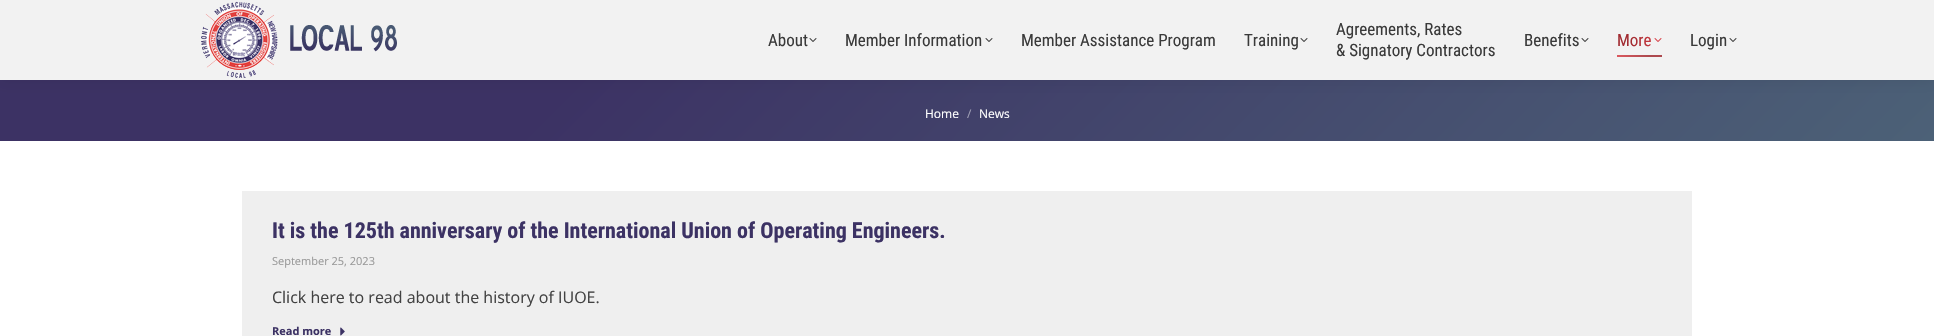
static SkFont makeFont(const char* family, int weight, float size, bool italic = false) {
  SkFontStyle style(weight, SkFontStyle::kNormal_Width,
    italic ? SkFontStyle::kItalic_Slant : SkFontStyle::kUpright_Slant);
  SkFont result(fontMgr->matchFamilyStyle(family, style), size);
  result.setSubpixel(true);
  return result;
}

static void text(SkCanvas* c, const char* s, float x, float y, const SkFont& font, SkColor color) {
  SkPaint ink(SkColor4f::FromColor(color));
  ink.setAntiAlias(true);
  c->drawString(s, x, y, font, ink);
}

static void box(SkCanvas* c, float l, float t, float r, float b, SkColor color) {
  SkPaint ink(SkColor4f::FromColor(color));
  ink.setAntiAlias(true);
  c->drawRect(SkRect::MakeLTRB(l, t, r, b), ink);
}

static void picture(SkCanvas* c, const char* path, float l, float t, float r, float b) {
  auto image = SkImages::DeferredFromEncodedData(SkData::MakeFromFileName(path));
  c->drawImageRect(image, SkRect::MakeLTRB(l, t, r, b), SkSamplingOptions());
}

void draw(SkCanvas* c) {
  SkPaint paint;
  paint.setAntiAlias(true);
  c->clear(0xffffffff);
  {
    const SkColor colors[] = {0xff3c3264, 0xff4c6177};
    const float stops[] = {0.3f, 1};
    const SkPoint ends[] = {{458, -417}, {1476, 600}};
    paint.setShader(SkGradientShader::MakeLinear(ends, colors, stops, 2, SkTileMode::kClamp));
    paint.setAlpha(255);
  }
  c->drawRect(SkRect::MakeLTRB(0, 80, 1934, 141), paint);
  paint.setShader(nullptr);
  paint.setColor(0x12000000);
  paint.setMaskFilter(SkMaskFilter::MakeBlur(kNormal_SkBlurStyle, 7.5f));
  c->drawRect(SkRect::MakeLTRB(-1, -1, 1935, 81), paint);
  paint.setMaskFilter(nullptr);
  box(c, 0, 0, 1934, 80, 0xfff2f2f2);
  picture(c, "img_01.png", 201, 1, 397, 78);
  SkFont face1 = makeFont("Roboto Condensed", 400, 17);
  text(c, "About", 768, 46, face1, 0xff3a3a3a);
  picture(c, "img_02.png", 809, 38, 817, 42);
  text(c, "Member Information", 845, 46, face1, 0xff3a3a3a);
  picture(c, "img_02.png", 985, 38, 993, 42);
  text(c, "Member Assistance Program", 1021, 46, face1, 0xff3a3a3a);
  text(c, "Training", 1244, 46, face1, 0xff3a3a3a);
  picture(c, "img_02.png", 1300, 38, 1308, 42);
  text(c, "Agreements, Rates", 1336, 35, face1, 0xff3a3a3a);
  text(c, "& Signatory Contractors", 1336, 56, face1, 0xff3a3a3a);
  text(c, "Benefits", 1524, 46, face1, 0xff3a3a3a);
  picture(c, "img_02.png", 1581, 38, 1589, 42);
  {
    const SkColor colors[] = {0xffa12b31, 0xffd73e45};
    const float stops[] = {0.3f, 1};
    const SkPoint ends[] = {{1617, 40}, {1662, 40}};
    paint.setShader(SkGradientShader::MakeLinear(ends, colors, stops, 2, SkTileMode::kClamp));
    paint.setAlpha(255);
  }
  c->drawString("More", 1617, 46, face1, paint);
  picture(c, "img_03.png", 1654, 38, 1662, 42);
  {
    const SkColor colors[] = {0xffad494e, 0xffdb595f};
    const float stops[] = {0.3f, 1};
    const SkPoint ends[] = {{1662, 56}, {1617, 56}};
    paint.setShader(SkGradientShader::MakeLinear(ends, colors, stops, 2, SkTileMode::kClamp));
    paint.setAlpha(255);
  }
  c->drawRect(SkRect::MakeLTRB(1617, 55, 1662, 57), paint);
  text(c, "Login", 1690, 46, face1, 0xff3a3a3a);
  picture(c, "img_02.png", 1729, 38, 1737, 42);
  SkFont face2 = makeFont("Open Sans", 400, 12);
  text(c, "Home", 925, 118, face2, 0xffffffff);
  text(c, "/", 967, 118, face2, 0xffa0a0b5);
  text(c, "News", 979, 118, face2, 0xffffffff);
  box(c, 242, 191, 1692, 336, 0xffefefef);
  SkFont face3 = makeFont("Roboto Condensed", 700, 22);
  text(c, "It is the 125th anniversary of the International Union of Operating Engineers.", 272, 238, face3, 0xff3c3264);
  SkFont face4 = makeFont("Open Sans", 400, 11);
  text(c, "September 25, 2023", 272, 265, face4, 0xff999999);
  SkFont face5 = makeFont("Open Sans", 400, 16);
  text(c, "Click here to read about the history of IUOE.", 272, 303, face5, 0xff424242);
  SkFont face6 = makeFont("Open Sans", 700, 11);
  text(c, "Read more", 272, 335, face6, 0xff3c3264);
  picture(c, "img_04.png", 340, 327, 345, 336);
}
